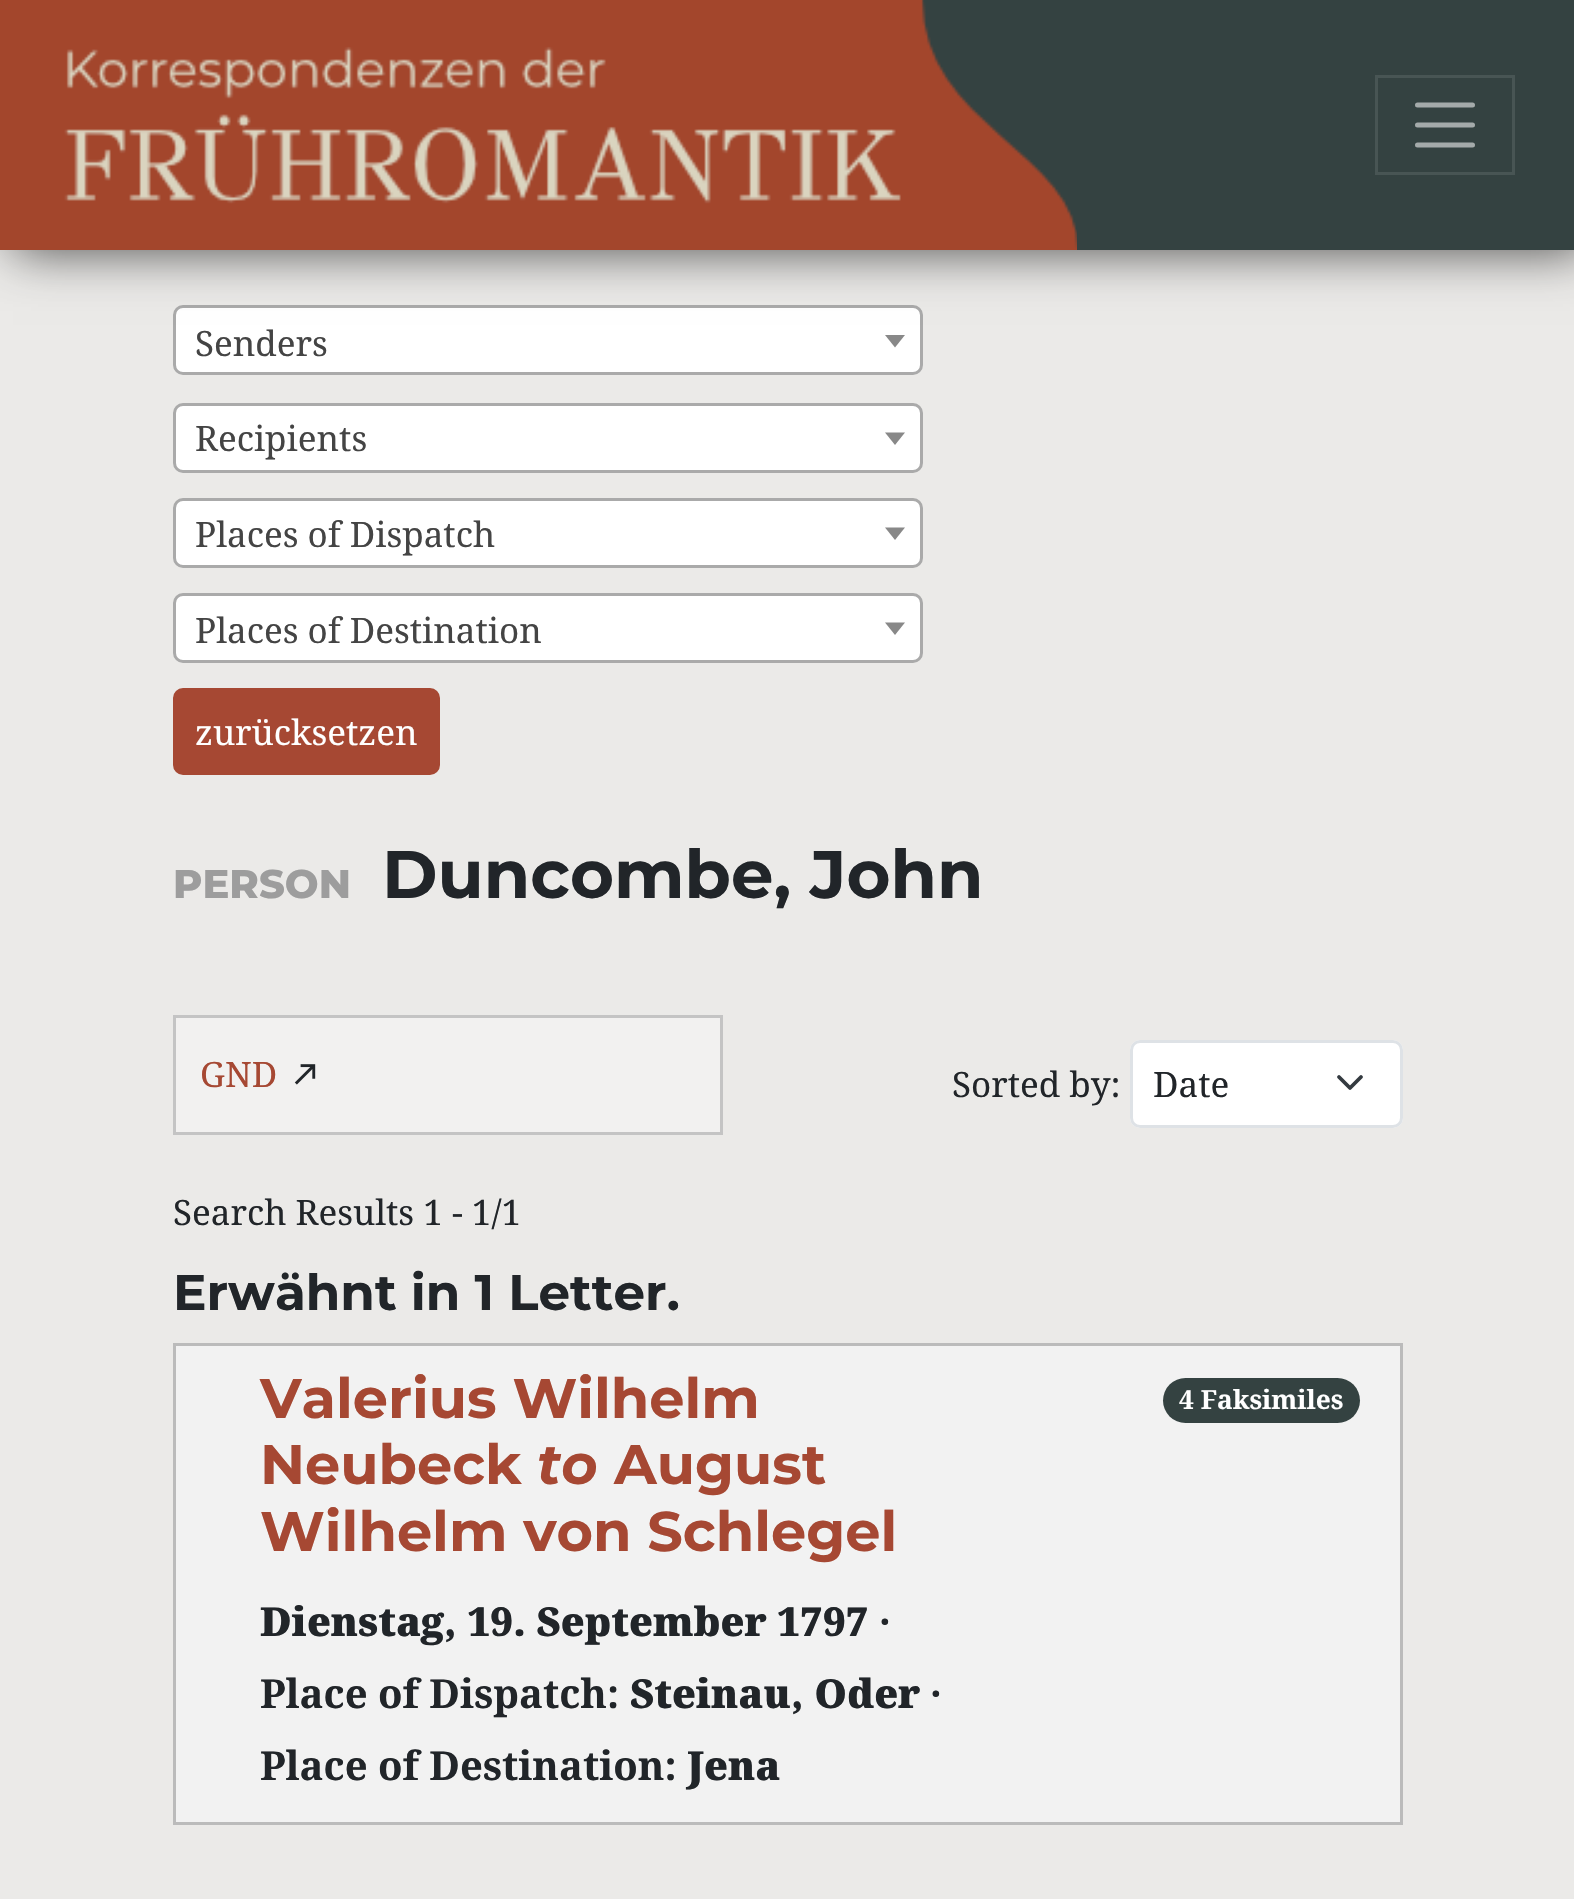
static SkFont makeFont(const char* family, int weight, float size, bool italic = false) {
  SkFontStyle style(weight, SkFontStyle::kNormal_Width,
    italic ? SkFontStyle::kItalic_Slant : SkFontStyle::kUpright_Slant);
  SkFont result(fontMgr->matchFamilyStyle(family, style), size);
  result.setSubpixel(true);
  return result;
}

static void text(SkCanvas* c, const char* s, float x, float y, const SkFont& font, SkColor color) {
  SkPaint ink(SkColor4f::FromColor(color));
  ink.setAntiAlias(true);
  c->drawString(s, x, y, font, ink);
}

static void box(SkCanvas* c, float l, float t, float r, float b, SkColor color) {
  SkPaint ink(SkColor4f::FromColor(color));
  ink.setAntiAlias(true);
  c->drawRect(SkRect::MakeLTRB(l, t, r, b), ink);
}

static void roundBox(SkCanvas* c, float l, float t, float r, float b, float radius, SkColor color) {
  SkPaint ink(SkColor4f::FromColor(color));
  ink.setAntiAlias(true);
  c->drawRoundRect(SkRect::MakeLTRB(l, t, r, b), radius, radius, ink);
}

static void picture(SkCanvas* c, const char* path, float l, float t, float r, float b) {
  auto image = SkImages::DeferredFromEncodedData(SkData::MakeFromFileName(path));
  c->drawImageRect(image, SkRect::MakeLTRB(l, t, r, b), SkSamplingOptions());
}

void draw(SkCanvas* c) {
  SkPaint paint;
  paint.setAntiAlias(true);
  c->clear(0xffebeae8);
  paint.setColor(0xffffffff);
  c->drawRoundRect(SkRect::MakeLTRB(174.5f, 306.5f, 921.5f, 373.5f), 8.5f, 8.5f, paint);
  paint.setStyle(SkPaint::kStroke_Style);
  paint.setStrokeWidth(3);
  paint.setColor(0xffaaaaaa);
  c->drawRoundRect(SkRect::MakeLTRB(174.5f, 306.5f, 921.5f, 373.5f), 8.5f, 8.5f, paint);
  paint.setStyle(SkPaint::kFill_Style);
  paint.setColor(0xb3000000);
  paint.setMaskFilter(SkMaskFilter::MakeBlur(kNormal_SkBlurStyle, 25));
  c->drawRect(SkRect::MakeLTRB(13, 0, 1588, 250), paint);
  paint.setMaskFilter(nullptr);
  box(c, 921, 0, 1574, 250, 0xff344241);
  picture(c, "img_01.png", 0, 0, 1077, 250);
  paint.setStyle(SkPaint::kStroke_Style);
  paint.setColor(0xff485554);
  c->drawRect(SkRect::MakeLTRB(1376.5f, 76.5f, 1513.5f, 173.5f), paint);
  paint.setStrokeWidth(5);
  paint.setStrokeCap(SkPaint::kRound_Cap);
  paint.setColor(0xffa4aaaa);
  c->drawPath(SkPathBuilder().moveTo(1417.5f, 105).lineTo(1472.5f, 105).moveTo(1417.5f, 125).lineTo(1472.5f, 125).moveTo(1417.5f, 145).lineTo(1472.5f, 145).detach(), paint);
  SkFont face1 = makeFont("Noto Serif", 400, 35);
  text(c, "Senders", 195, 356, face1, 0xff444444);
  paint.setStyle(SkPaint::kFill_Style);
  paint.setColor(0xff888888);
  c->drawPath(SkPathBuilder().moveTo(885, 335).lineTo(905, 335).lineTo(895, 347.5f).close().detach(), paint);
  paint.setColor(0xffffffff);
  c->drawRoundRect(SkRect::MakeLTRB(174.5f, 404.5f, 921.5f, 471.5f), 8.5f, 8.5f, paint);
  paint.setStyle(SkPaint::kStroke_Style);
  paint.setStrokeWidth(3);
  paint.setStrokeCap(SkPaint::kButt_Cap);
  paint.setColor(0xffaaaaaa);
  c->drawRoundRect(SkRect::MakeLTRB(174.5f, 404.5f, 921.5f, 471.5f), 8.5f, 8.5f, paint);
  text(c, "Recipients", 195, 451, face1, 0xff444444);
  paint.setStyle(SkPaint::kFill_Style);
  paint.setColor(0xff888888);
  c->drawPath(SkPathBuilder().moveTo(885, 432.5f).lineTo(905, 432.5f).lineTo(895, 445).close().detach(), paint);
  paint.setColor(0xffffffff);
  c->drawRoundRect(SkRect::MakeLTRB(174.5f, 499.5f, 921.5f, 566.5f), 8.5f, 8.5f, paint);
  paint.setStyle(SkPaint::kStroke_Style);
  paint.setColor(0xffaaaaaa);
  c->drawRoundRect(SkRect::MakeLTRB(174.5f, 499.5f, 921.5f, 566.5f), 8.5f, 8.5f, paint);
  text(c, "Places of Dispatch", 195, 547, face1, 0xff444444);
  paint.setStyle(SkPaint::kFill_Style);
  paint.setColor(0xff888888);
  c->drawPath(SkPathBuilder().moveTo(885, 527.5f).lineTo(905, 527.5f).lineTo(895, 540).close().detach(), paint);
  paint.setColor(0xffffffff);
  c->drawRoundRect(SkRect::MakeLTRB(174.5f, 594.5f, 921.5f, 661.5f), 8.5f, 8.5f, paint);
  paint.setStyle(SkPaint::kStroke_Style);
  paint.setColor(0xffaaaaaa);
  c->drawRoundRect(SkRect::MakeLTRB(174.5f, 594.5f, 921.5f, 661.5f), 8.5f, 8.5f, paint);
  text(c, "Places of Destination", 195, 643, face1, 0xff444444);
  paint.setStyle(SkPaint::kFill_Style);
  paint.setColor(0xff888888);
  c->drawPath(SkPathBuilder().moveTo(885, 622.5f).lineTo(905, 622.5f).lineTo(895, 635).close().detach(), paint);
  paint.setColor(0xffa64833);
  c->drawRoundRect(SkRect::MakeLTRB(174.5f, 689.5f, 438.5f, 773.5f), 8.5f, 8.5f, paint);
  paint.setStyle(SkPaint::kStroke_Style);
  c->drawRoundRect(SkRect::MakeLTRB(174.5f, 689.5f, 438.5f, 773.5f), 8.5f, 8.5f, paint);
  text(c, "zurücksetzen", 195, 745, face1, 0xffffffff);
  SkFont face2 = makeFont("Montserrat", 100, 40);
  text(c, "PERSON", 173, 898, face2, 0xff9d9d9d);
  SkFont face3 = makeFont("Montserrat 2", 100, 67.25f);
  text(c, "Duncombe, John", 382, 898, face3, 0xff212529);
  paint.setStyle(SkPaint::kFill_Style);
  paint.setColor(0xfff2f1f0);
  c->drawRect(SkRect::MakeLTRB(174.5f, 1016.5f, 721.5f, 1133.5f), paint);
  paint.setStyle(SkPaint::kStroke_Style);
  paint.setColor(0xffc4c4c4);
  c->drawRect(SkRect::MakeLTRB(174.5f, 1016.5f, 721.5f, 1133.5f), paint);
  text(c, "GND", 200, 1087, face1, 0xffa64833);
  picture(c, "img_02.png", 294, 1064, 316, 1085);
  text(c, "Sorted by:", 952, 1097, face1, 0xff212529);
  roundBox(c, 1130, 1040, 1403, 1128, 10, 0xffffffff);
  paint.setStrokeWidth(3.8f);
  paint.setStrokeCap(SkPaint::kRound_Cap);
  paint.setStrokeJoin(SkPaint::kRound_Join);
  paint.setColor(0xff343a40);
  c->drawPath(SkPathBuilder().moveTo(1339, 1077).lineTo(1350, 1088).lineTo(1361, 1077).detach(), paint);
  paint.setStrokeWidth(3);
  paint.setStrokeCap(SkPaint::kButt_Cap);
  paint.setStrokeJoin(SkPaint::kMiter_Join);
  paint.setColor(0xffdee2e6);
  c->drawRoundRect(SkRect::MakeLTRB(1131.5f, 1041.5f, 1401.5f, 1126.5f), 8.5f, 8.5f, paint);
  text(c, "Date", 1153, 1097, face1, 0xff212529);
  text(c, "Search Results 1 - 1/1", 173, 1225, face1, 0xff212529);
  SkFont face4 = makeFont("Montserrat 2", 100, 50);
  text(c, "Erwähnt in 1 Letter.", 173, 1310, face4, 0xff212529);
  paint.setStyle(SkPaint::kFill_Style);
  paint.setColor(0xfff2f2f2);
  c->drawRect(SkRect::MakeLTRB(174.5f, 1344.5f, 1401.5f, 1823.5f), paint);
  paint.setStyle(SkPaint::kStroke_Style);
  paint.setColor(0xffbbbbbb);
  c->drawRect(SkRect::MakeLTRB(174.5f, 1344.5f, 1401.5f, 1823.5f), paint);
  SkFont face5 = makeFont("Montserrat 2", 100, 55.75f);
  text(c, "Valerius Wilhelm", 260, 1418, face5, 0xffa64833);
  text(c, "Neubeck", 260, 1484, face5, 0xffa64833);
  SkFont face6 = makeFont("Montserrat", 100, 55.75f, true);
  text(c, "to", 537, 1484, face6, 0xffa64833);
  text(c, "August", 614, 1484, face5, 0xffa64833);
  text(c, "Wilhelm von Schlegel", 260, 1551, face5, 0xffa64833);
  SkFont face7 = makeFont("Noto Serif", 900, 40);
  text(c, "Dienstag, 19. September 1797", 260, 1636, face7, 0xff212529);
  SkFont face8 = makeFont("Noto Serif", 700, 40);
  text(c, "·", 879, 1636, face8, 0xff212529);
  text(c, "Place of Dispatch:", 260, 1708, face8, 0xff212529);
  text(c, "Steinau, Oder", 630, 1708, face7, 0xff212529);
  text(c, "·", 930, 1708, face8, 0xff212529);
  text(c, "Place of Destination:", 260, 1780, face8, 0xff212529);
  text(c, "Jena", 687, 1780, face7, 0xff212529);
  roundBox(c, 1163, 1378, 1360, 1423, 22.5f, 0xff344241);
  SkFont face9 = makeFont("Noto Serif", 700, 26.25f);
  text(c, "4 Faksimiles", 1179, 1409, face9, 0xffffffff);
}
